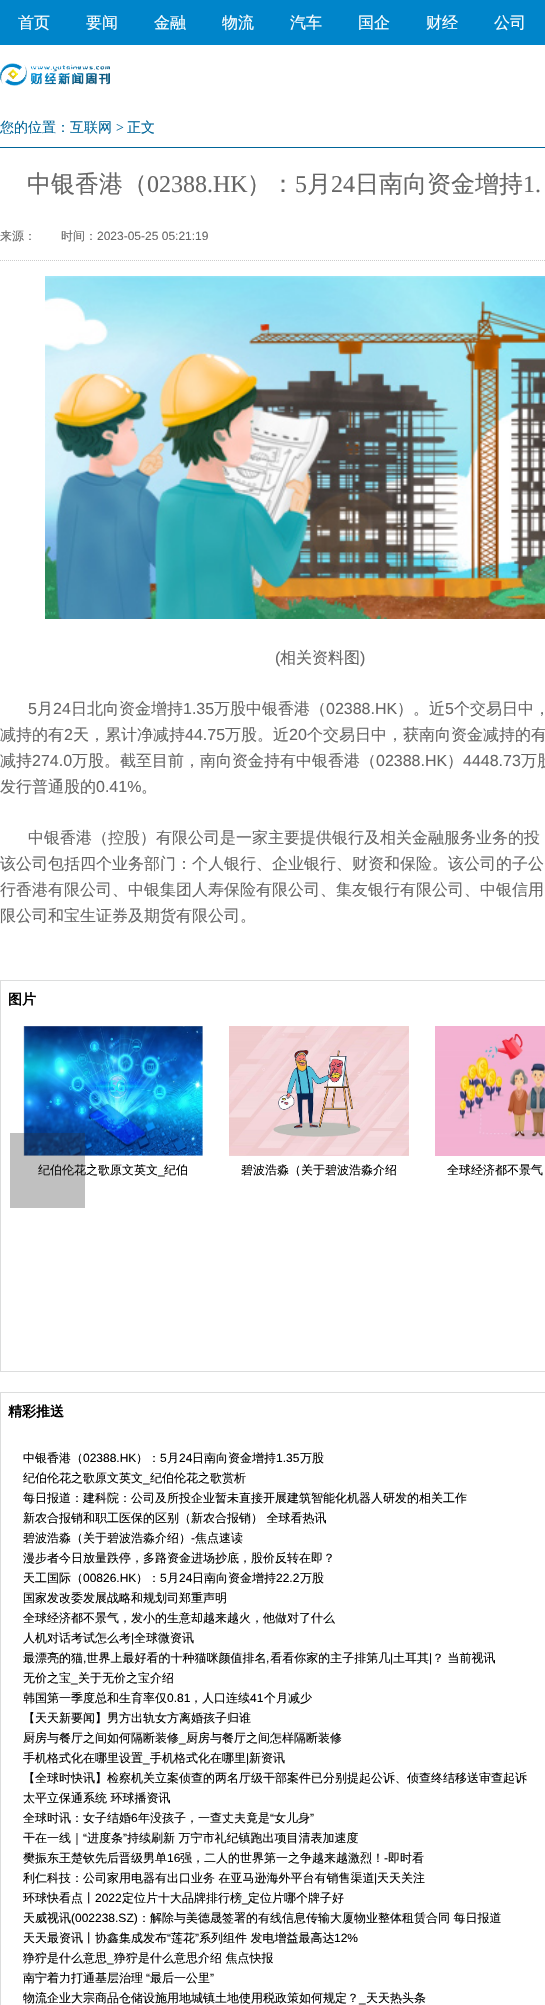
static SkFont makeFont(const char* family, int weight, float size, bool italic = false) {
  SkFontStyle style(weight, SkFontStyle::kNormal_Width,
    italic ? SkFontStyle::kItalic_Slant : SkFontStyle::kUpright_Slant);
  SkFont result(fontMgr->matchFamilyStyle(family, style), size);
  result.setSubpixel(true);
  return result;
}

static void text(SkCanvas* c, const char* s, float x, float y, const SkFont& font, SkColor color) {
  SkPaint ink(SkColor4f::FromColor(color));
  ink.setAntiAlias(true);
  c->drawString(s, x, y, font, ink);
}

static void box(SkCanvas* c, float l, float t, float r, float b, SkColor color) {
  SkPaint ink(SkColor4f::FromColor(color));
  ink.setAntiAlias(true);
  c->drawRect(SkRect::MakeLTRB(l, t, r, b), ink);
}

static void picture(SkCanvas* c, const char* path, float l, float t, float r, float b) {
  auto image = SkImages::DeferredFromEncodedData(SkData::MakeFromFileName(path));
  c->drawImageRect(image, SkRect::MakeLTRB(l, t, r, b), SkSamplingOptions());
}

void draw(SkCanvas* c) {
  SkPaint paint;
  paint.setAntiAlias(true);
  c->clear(0xffffffff);
  box(c, 0, 0, 545, 45, 0xff0085ca);
  SkFont face1 = makeFont("WenQuanYi Zen Hei", 500, 16);
  text(c, "首页", 18, 28, face1, 0xffffffff);
  text(c, "要闻", 86, 28, face1, 0xffffffff);
  text(c, "金融", 154, 28, face1, 0xffffffff);
  text(c, "物流", 222, 28, face1, 0xffffffff);
  text(c, "汽车", 290, 28, face1, 0xffffffff);
  text(c, "国企", 358, 28, face1, 0xffffffff);
  text(c, "财经", 426, 28, face1, 0xffffffff);
  text(c, "公司", 494, 28, face1, 0xffffffff);
  picture(c, "img_01.png", 0, 63, 110, 86);
  box(c, 0, 147, 545, 148, 0xff006599);
  SkFont face2 = makeFont("WenQuanYi Zen Hei", 500, 14);
  text(c, "您的位置：互联网", 0, 132, face2, 0xff006599);
  SkFont face3 = makeFont("Liberation Serif", 400, 14);
  text(c, ">", 116, 132, face3, 0xff006599);
  text(c, "正文", 127, 132, face2, 0xff006599);
  SkFont face4 = makeFont("WenQuanYi Zen Hei", 500, 24);
  text(c, "中银香港（", 27, 192, face4, 0xff666666);
  SkFont face5 = makeFont("Liberation Serif", 400, 24);
  text(c, "02388.HK", 147, 192, face5, 0xff666666);
  text(c, "）：", 247, 192, face4, 0xff666666);
  text(c, "5", 295, 192, face5, 0xff666666);
  text(c, "月", 307, 192, face4, 0xff666666);
  text(c, "24", 331, 192, face5, 0xff666666);
  text(c, "日南向资金增持", 355, 192, face4, 0xff666666);
  text(c, "1.", 523, 192, face5, 0xff666666);
  paint.setStyle(SkPaint::kStroke_Style);
  paint.setStrokeWidth(1);
  paint.setColor(0xffcccccc);
  paint.setPathEffect(SkDashPathEffect::Make({{1, 1}}, 0));
  c->drawPath(SkPathBuilder().moveTo(0, 260.5f).lineTo(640, 260.5f).detach(), paint);
  paint.setPathEffect(nullptr);
  SkFont face6 = makeFont("WenQuanYi Zen Hei", 500, 12);
  text(c, "来源：", 0, 240, face6, 0xff666666);
  text(c, "时间：", 61, 240, face6, 0xff666666);
  SkFont face7 = makeFont("Liberation Sans", 400, 12);
  text(c, "2023-05-25 05:21:19", 97, 240, face7, 0xff666666);
  picture(c, "img_02.png", 45, 276, 545, 619);
  SkFont face8 = makeFont("Liberation Sans", 400, 16);
  text(c, "(", 275, 663, face8, 0xff666666);
  text(c, "相关资料图", 280, 663, face1, 0xff666666);
  text(c, ")", 360, 663, face8, 0xff666666);
  text(c, "5", 28, 714, face8, 0xff666666);
  text(c, "月", 37, 714, face1, 0xff666666);
  text(c, "24", 53, 714, face8, 0xff666666);
  text(c, "日北向资金增持", 71, 714, face1, 0xff666666);
  text(c, "1.35", 183, 714, face8, 0xff666666);
  text(c, "万股中银香港（", 214, 714, face1, 0xff666666);
  text(c, "02388.HK", 326, 714, face8, 0xff666666);
  text(c, "）。近", 397, 714, face1, 0xff666666);
  text(c, "5", 445, 714, face8, 0xff666666);
  text(c, "个交易日中，", 454, 714, face1, 0xff666666);
  text(c, "减持的有", 0, 740, face1, 0xff666666);
  text(c, "2", 64, 740, face8, 0xff666666);
  text(c, "天，累计净减持", 73, 740, face1, 0xff666666);
  text(c, "44.75", 185, 740, face8, 0xff666666);
  text(c, "万股。近", 225, 740, face1, 0xff666666);
  text(c, "20", 289, 740, face8, 0xff666666);
  text(c, "个交易日中，获南向资金减持的有", 307, 740, face1, 0xff666666);
  text(c, "减持", 0, 766, face1, 0xff666666);
  text(c, "274.0", 32, 766, face8, 0xff666666);
  text(c, "万股。截至目前，南向资金持有中银香港（", 72, 766, face1, 0xff666666);
  text(c, "02388.HK", 376, 766, face8, 0xff666666);
  text(c, "）", 447, 766, face1, 0xff666666);
  text(c, "4448.73", 463, 766, face8, 0xff666666);
  text(c, "万股", 521, 766, face1, 0xff666666);
  text(c, "发行普通股的", 0, 792, face1, 0xff666666);
  text(c, "0.41%", 96, 792, face8, 0xff666666);
  text(c, "。", 141, 792, face1, 0xff666666);
  text(c, "中银香港（控股）有限公司是一家主要提供银行及相关金融服务业务的投", 28, 843, face1, 0xff666666);
  text(c, "该公司包括四个业务部门：个人银行、企业银行、财资和保险。该公司的子公", 0, 869, face1, 0xff666666);
  text(c, "行香港有限公司、中银集团人寿保险有限公司、集友银行有限公司、中银信用", 0, 895, face1, 0xff666666);
  text(c, "限公司和宝生证券及期货有限公司。", 0, 921, face1, 0xff666666);
  paint.setColor(0xffdcdddd);
  c->drawRect(SkRect::MakeLTRB(0.5f, 980.5f, 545.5f, 1371.5f), paint);
  SkFont face9 = makeFont("WenQuanYi Zen Hei", 700, 14);
  text(c, "图片", 8, 1004, face9, 0xff000000);
  picture(c, "img_03.png", 23, 1026, 203, 1156);
  text(c, "纪伯伦花之歌原文英文", 38, 1174, face6, 0xff000000);
  box(c, 10, 1133, 85, 1208, 0x4d303030);
  text(c, "_", 158, 1174, face7, 0xff000000);
  text(c, "纪伯", 164, 1174, face6, 0xff000000);
  picture(c, "img_04.png", 229, 1026, 409, 1156);
  text(c, "碧波浩淼（关于碧波浩淼介绍", 241, 1174, face6, 0xff000000);
  picture(c, "img_05.png", 435, 1026, 545, 1156);
  text(c, "全球经济都不景气", 447, 1174, face6, 0xff000000);
  c->drawRect(SkRect::MakeLTRB(0.5f, 1392.5f, 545.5f, 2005.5f), paint);
  text(c, "精彩推送", 8, 1416, face9, 0xff000000);
  text(c, "中银香港（", 23, 1462, face6, 0xff000000);
  text(c, "02388.HK", 83, 1462, face7, 0xff000000);
  text(c, "）：", 136, 1462, face6, 0xff000000);
  text(c, "5", 160, 1462, face7, 0xff000000);
  text(c, "月", 167, 1462, face6, 0xff000000);
  text(c, "24", 179, 1462, face7, 0xff000000);
  text(c, "日南向资金增持", 192, 1462, face6, 0xff000000);
  text(c, "1.35", 276, 1462, face7, 0xff000000);
  text(c, "万股", 300, 1462, face6, 0xff000000);
  text(c, "纪伯伦花之歌原文英文", 23, 1482, face6, 0xff000000);
  text(c, "_", 143, 1482, face7, 0xff000000);
  text(c, "纪伯伦花之歌赏析", 150, 1482, face6, 0xff000000);
  text(c, "每日报道：建科院：公司及所投企业暂未直接开展建筑智能化机器人研发的相关工作", 23, 1502, face6, 0xff000000);
  text(c, "新农合报销和职工医保的区别（新农合报销） 全球看热讯", 23, 1522, face6, 0xff000000);
  text(c, "碧波浩淼（关于碧波浩淼介绍）", 23, 1542, face6, 0xff000000);
  text(c, "-", 191, 1542, face7, 0xff000000);
  text(c, "焦点速读", 195, 1542, face6, 0xff000000);
  text(c, "漫步者今日放量跌停，多路资金进场抄底，股价反转在即？", 23, 1562, face6, 0xff000000);
  text(c, "天工国际（", 23, 1582, face6, 0xff000000);
  text(c, "00826.HK", 83, 1582, face7, 0xff000000);
  text(c, "）：", 136, 1582, face6, 0xff000000);
  text(c, "5", 160, 1582, face7, 0xff000000);
  text(c, "月", 167, 1582, face6, 0xff000000);
  text(c, "24", 179, 1582, face7, 0xff000000);
  text(c, "日南向资金增持", 192, 1582, face6, 0xff000000);
  text(c, "22.2", 276, 1582, face7, 0xff000000);
  text(c, "万股", 300, 1582, face6, 0xff000000);
  text(c, "国家发改委发展战略和规划司郑重声明", 23, 1602, face6, 0xff000000);
  text(c, "全球经济都不景气，发小的生意却越来越火，他做对了什么", 23, 1622, face6, 0xff000000);
  text(c, "人机对话考试怎么考", 23, 1642, face6, 0xff000000);
  text(c, "|", 131, 1642, face7, 0xff000000);
  text(c, "全球微资讯", 134, 1642, face6, 0xff000000);
  text(c, "最漂亮的猫 世界上最好看的十种猫咪颜值排名 看看你家的主子排第几", 23, 1662, face6, 0xff000000);
  text(c, "|", 390, 1662, face7, 0xff000000);
  text(c, "土耳其", 393, 1662, face6, 0xff000000);
  text(c, "|", 429, 1662, face7, 0xff000000);
  text(c, "？ 当前视讯", 432, 1662, face6, 0xff000000);
  text(c, ",", 83, 1662, face7, 0xff000000);
  text(c, ",", 266, 1662, face7, 0xff000000);
  text(c, "无价之宝", 23, 1682, face6, 0xff000000);
  text(c, "_", 71, 1682, face7, 0xff000000);
  text(c, "关于无价之宝介绍", 78, 1682, face6, 0xff000000);
  text(c, "韩国第一季度总和生育率仅", 23, 1702, face6, 0xff000000);
  text(c, "0.81", 167, 1702, face7, 0xff000000);
  text(c, "，人口连续", 190, 1702, face6, 0xff000000);
  text(c, "41", 250, 1702, face7, 0xff000000);
  text(c, "个月减少", 264, 1702, face6, 0xff000000);
  text(c, "【天天新要闻】男方出轨女方离婚孩子归谁", 23, 1722, face6, 0xff000000);
  text(c, "厨房与餐厅之间如何隔断装修", 23, 1742, face6, 0xff000000);
  text(c, "_", 179, 1742, face7, 0xff000000);
  text(c, "厨房与餐厅之间怎样隔断装修", 186, 1742, face6, 0xff000000);
  text(c, "手机格式化在哪里设置", 23, 1762, face6, 0xff000000);
  text(c, "_", 143, 1762, face7, 0xff000000);
  text(c, "手机格式化在哪里", 150, 1762, face6, 0xff000000);
  text(c, "|", 246, 1762, face7, 0xff000000);
  text(c, "新资讯", 249, 1762, face6, 0xff000000);
  text(c, "【全球时快讯】检察机关立案侦查的两名厅级干部案件已分别提起公诉、侦查终结移送审查起诉", 23, 1782, face6, 0xff000000);
  text(c, "太平立保通系统 环球播资讯", 23, 1802, face6, 0xff000000);
  text(c, "全球时讯：女子结婚", 23, 1822, face6, 0xff000000);
  text(c, "6", 131, 1822, face7, 0xff000000);
  text(c, "年没孩子，一查丈夫竟是", 138, 1822, face6, 0xff000000);
  text(c, "“", 270, 1822, face7, 0xff000000);
  text(c, "女儿身", 274, 1822, face6, 0xff000000);
  text(c, "”", 310, 1822, face7, 0xff000000);
  text(c, "干在一线｜", 23, 1842, face6, 0xff000000);
  text(c, "“", 83, 1842, face7, 0xff000000);
  text(c, "进度条", 87, 1842, face6, 0xff000000);
  text(c, "”", 123, 1842, face7, 0xff000000);
  text(c, "持续刷新 万宁市礼纪镇跑出项目清表加速度", 127, 1842, face6, 0xff000000);
  text(c, "樊振东王楚钦先后晋级男单", 23, 1862, face6, 0xff000000);
  text(c, "16", 167, 1862, face7, 0xff000000);
  text(c, "强，二人的世界第一之争越来越激烈！", 180, 1862, face6, 0xff000000);
  text(c, "-", 384, 1862, face7, 0xff000000);
  text(c, "即时看", 388, 1862, face6, 0xff000000);
  text(c, "利仁科技：公司家用电器有出口业务 在亚马逊海外平台有销售渠道", 23, 1882, face6, 0xff000000);
  text(c, "|", 374, 1882, face7, 0xff000000);
  text(c, "天天关注", 377, 1882, face6, 0xff000000);
  text(c, "环球快看点丨", 23, 1902, face6, 0xff000000);
  text(c, "2022", 95, 1902, face7, 0xff000000);
  text(c, "定位片十大品牌排行榜", 122, 1902, face6, 0xff000000);
  text(c, "_", 242, 1902, face7, 0xff000000);
  text(c, "定位片哪个牌子好", 248, 1902, face6, 0xff000000);
  text(c, "天威视讯", 23, 1922, face6, 0xff000000);
  text(c, "(002238.SZ)", 71, 1922, face7, 0xff000000);
  text(c, "：解除与美德晟签署的有线信息传输大厦物业整体租赁合同 每日报道", 138, 1922, face6, 0xff000000);
  text(c, "天天最资讯丨协鑫集成发布", 23, 1942, face6, 0xff000000);
  text(c, "“", 167, 1942, face7, 0xff000000);
  text(c, "莲花", 171, 1942, face6, 0xff000000);
  text(c, "”", 195, 1942, face7, 0xff000000);
  text(c, "系列组件 发电增益最高达", 199, 1942, face6, 0xff000000);
  text(c, "12%", 334, 1942, face7, 0xff000000);
  text(c, "狰狞是什么意思", 23, 1962, face6, 0xff000000);
  text(c, "_", 107, 1962, face7, 0xff000000);
  text(c, "狰狞是什么意思介绍 焦点快报", 114, 1962, face6, 0xff000000);
  text(c, "南宁着力打通基层治理", 23, 1982, face6, 0xff000000);
  text(c, "“", 146, 1982, face7, 0xff000000);
  text(c, "最后一公里", 150, 1982, face6, 0xff000000);
  text(c, "”", 210, 1982, face7, 0xff000000);
  text(c, "物流企业大宗商品仓储设施用地城镇土地使用税政策如何规定？", 23, 2002, face6, 0xff000000);
  text(c, "_", 359, 2002, face7, 0xff000000);
  text(c, "天天热头条", 366, 2002, face6, 0xff000000);
}
